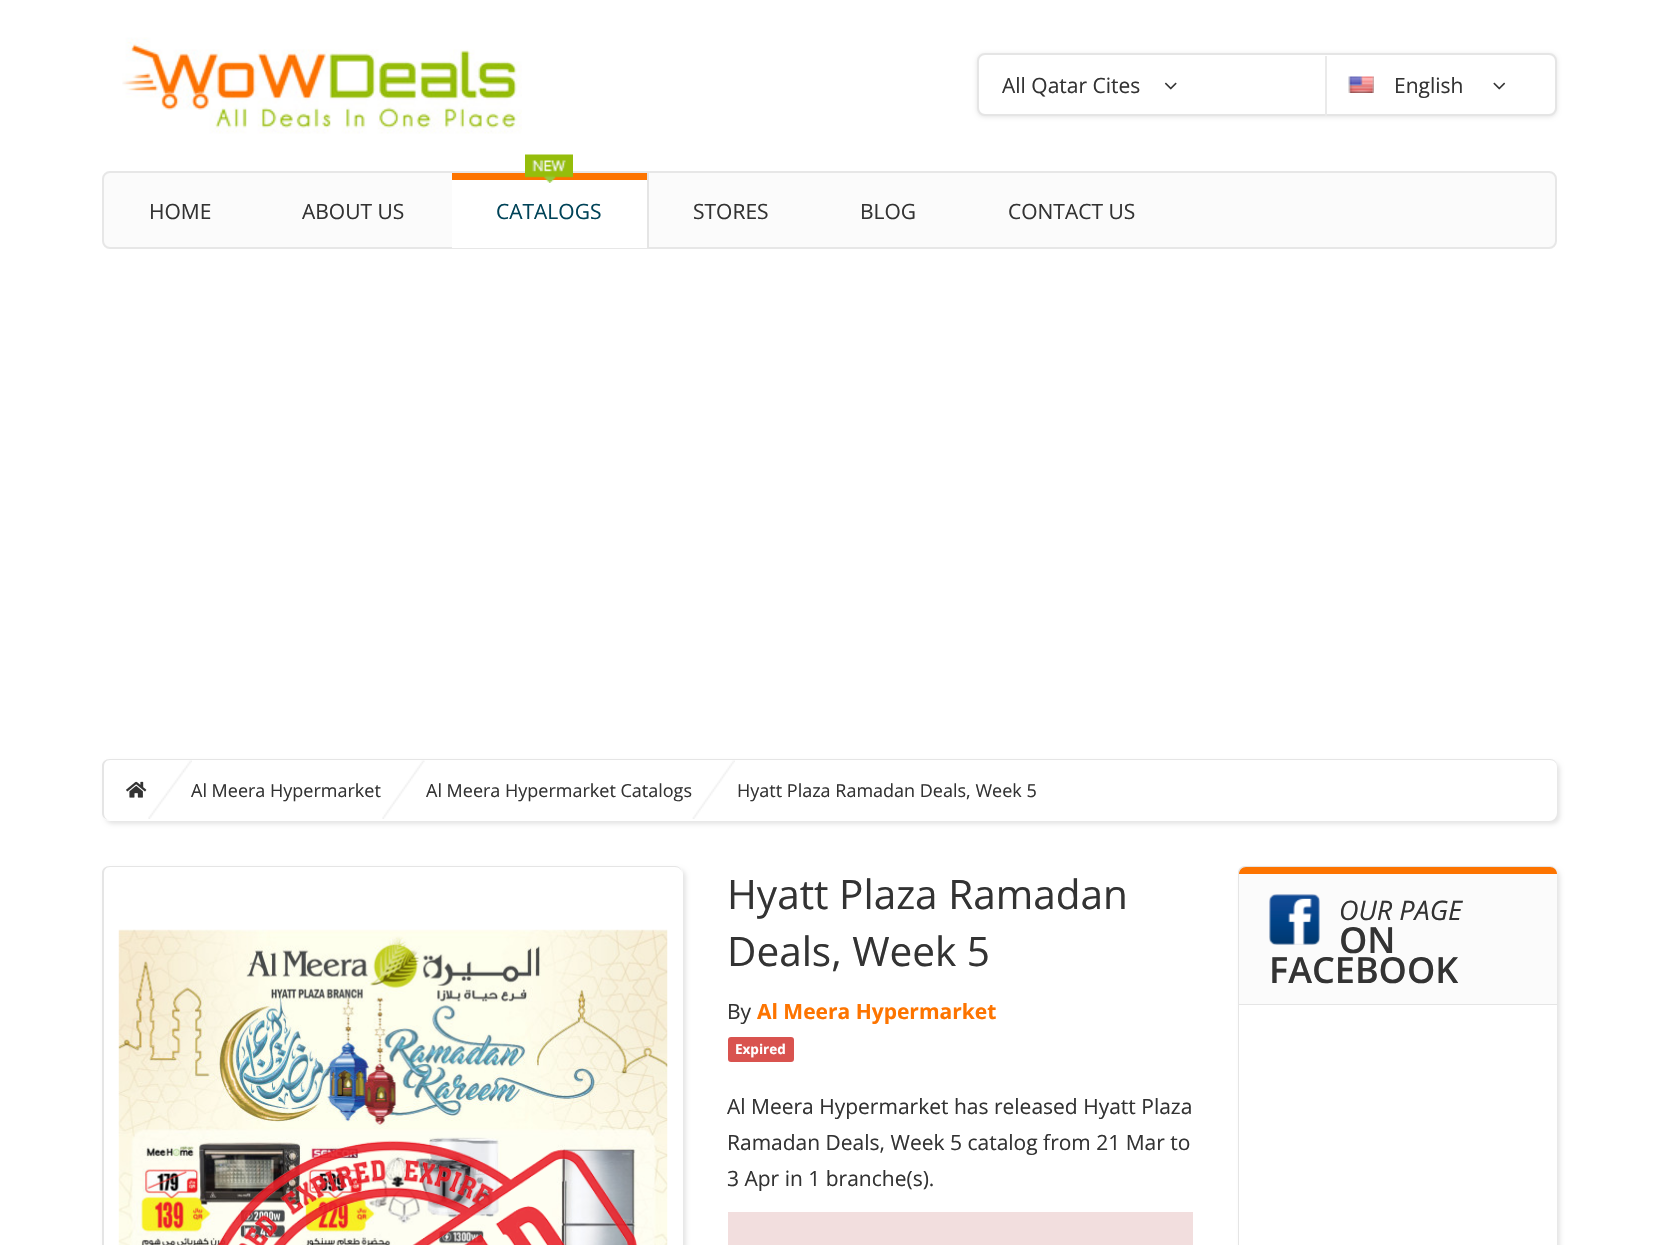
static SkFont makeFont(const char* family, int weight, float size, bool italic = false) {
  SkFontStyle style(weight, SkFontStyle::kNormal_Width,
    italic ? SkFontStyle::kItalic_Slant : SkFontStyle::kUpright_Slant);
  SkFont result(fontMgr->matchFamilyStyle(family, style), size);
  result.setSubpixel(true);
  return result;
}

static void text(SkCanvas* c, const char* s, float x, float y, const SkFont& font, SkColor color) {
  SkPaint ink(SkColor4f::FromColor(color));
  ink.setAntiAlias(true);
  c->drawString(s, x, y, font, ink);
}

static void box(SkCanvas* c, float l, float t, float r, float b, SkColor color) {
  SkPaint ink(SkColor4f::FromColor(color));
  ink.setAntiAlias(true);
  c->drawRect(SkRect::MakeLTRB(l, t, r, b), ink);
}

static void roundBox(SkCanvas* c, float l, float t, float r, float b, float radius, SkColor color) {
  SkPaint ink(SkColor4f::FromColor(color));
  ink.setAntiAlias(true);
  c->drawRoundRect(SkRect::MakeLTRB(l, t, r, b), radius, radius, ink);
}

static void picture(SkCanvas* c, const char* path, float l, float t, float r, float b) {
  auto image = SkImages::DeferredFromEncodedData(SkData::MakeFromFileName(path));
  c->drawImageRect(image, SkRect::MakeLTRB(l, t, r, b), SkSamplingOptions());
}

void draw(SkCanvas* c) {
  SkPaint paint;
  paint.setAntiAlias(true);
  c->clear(0xffffffff);
  picture(c, "img_01.png", 122, 37, 522, 134);
  paint.setColor(0x1a000000);
  paint.setMaskFilter(SkMaskFilter::MakeBlur(kNormal_SkBlurStyle, 2));
  c->drawRoundRect(SkRect::MakeLTRB(977, 54, 1557, 117), 8, 8, paint);
  paint.setMaskFilter(nullptr);
  paint.setColor(0xffffffff);
  c->drawRoundRect(SkRect::MakeLTRB(978, 54, 1556, 115), 7, 7, paint);
  paint.setStyle(SkPaint::kStroke_Style);
  paint.setStrokeWidth(2);
  paint.setColor(0xffe5e5e5);
  c->drawRoundRect(SkRect::MakeLTRB(978, 54, 1556, 115), 7, 7, paint);
  SkFont face1 = makeFont("Open Sans", 400, 21);
  text(c, "All Qatar Cites", 1002, 93, face1, 0xff333333);
  picture(c, "img_02.png", 1164, 82, 1177, 90);
  box(c, 1325, 56, 1327, 116, 0xffeaeaea);
  picture(c, "img_03.png", 1348, 76, 1374, 93);
  text(c, "English", 1394, 93, face1, 0xff333333);
  picture(c, "img_04.png", 1493, 82, 1506, 90);
  paint.setStyle(SkPaint::kFill_Style);
  paint.setColor(0xfffbfbfb);
  c->drawRoundRect(SkRect::MakeLTRB(103, 172, 1556, 248), 7, 7, paint);
  paint.setStyle(SkPaint::kStroke_Style);
  paint.setColor(0xffe7e7e7);
  c->drawRoundRect(SkRect::MakeLTRB(103, 172, 1556, 248), 7, 7, paint);
  text(c, "HOME", 149, 219, face1, 0xff333333);
  text(c, "ABOUT US", 302, 219, face1, 0xff333333);
  box(c, 647, 173, 649, 248, 0xffe5e5e5);
  box(c, 452, 180, 647, 248, 0xffffffff);
  box(c, 452, 173, 647, 180, 0xfffd7400);
  picture(c, "img_05.png", 525, 154, 573, 183);
  text(c, "CATALOGS", 496, 219, face1, 0xff004358);
  text(c, "STORES", 693, 219, face1, 0xff333333);
  text(c, "BLOG", 860, 219, face1, 0xff333333);
  text(c, "CONTACT US", 1008, 219, face1, 0xff333333);
  paint.setStyle(SkPaint::kFill_Style);
  paint.setColor(0x1a000000);
  paint.setMaskFilter(SkMaskFilter::MakeBlur(kNormal_SkBlurStyle, 2));
  c->drawRoundRect(SkRect::MakeLTRB(105, 762, 1560, 824), 8, 8, paint);
  paint.setMaskFilter(nullptr);
  roundBox(c, 102, 759, 1557, 821, 8, 0xffffffff);
  paint.setColor(0xffe5e5e5);
  c->drawPath(SkPathBuilder(SkPathFillType::kEvenOdd).moveTo(110, 759).lineTo(1550, 759).cubicTo(1554, 759, 1557, 762, 1557, 766).lineTo(1557, 813).cubicTo(1557, 817, 1554, 820, 1550, 820).lineTo(110, 820).cubicTo(105, 820, 102, 817, 102, 813).lineTo(102, 766).cubicTo(102, 762, 105, 759, 110, 759).close().moveTo(110, 760).lineTo(1550, 760).cubicTo(1554, 760, 1557, 763, 1557, 766).lineTo(1557, 813).cubicTo(1557, 817, 1554, 820, 1550, 820).lineTo(110, 820).cubicTo(106, 820, 104, 817, 104, 813).lineTo(104, 766).cubicTo(104, 763, 106, 760, 110, 760).close().detach(), paint);
  picture(c, "img_06.png", 126, 781, 147, 798);
  SkFont face2 = makeFont("Open Sans", 400, 18);
  text(c, "Al Meera Hypermarket", 191, 797, face2, 0xff333333);
  picture(c, "img_07.png", 148, 760, 192, 819);
  picture(c, "img_08.png", 382, 760, 425, 819);
  text(c, "Al Meera Hypermarket Catalogs", 426, 797, face2, 0xff333333);
  picture(c, "img_09.png", 692, 760, 735, 819);
  text(c, "Hyatt Plaza Ramadan Deals, Week 5", 737, 797, face2, 0xff333333);
  paint.setColor(0x1a000000);
  paint.setMaskFilter(SkMaskFilter::MakeBlur(kNormal_SkBlurStyle, 2));
  c->drawRoundRect(SkRect::MakeLTRB(105, 869, 686, 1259), 8, 8, paint);
  paint.setMaskFilter(nullptr);
  roundBox(c, 102, 866, 683, 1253, 8, 0xffffffff);
  paint.setColor(0xffe5e5e5);
  c->drawPath(SkPathBuilder(SkPathFillType::kEvenOdd).moveTo(110, 866).lineTo(675, 866).cubicTo(679, 866, 682, 869, 682, 873).lineTo(682, 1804).cubicTo(682, 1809, 679, 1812, 675, 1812).lineTo(110, 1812).cubicTo(105, 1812, 102, 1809, 102, 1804).lineTo(102, 873).cubicTo(102, 869, 105, 866, 110, 866).close().moveTo(110, 867).lineTo(675, 867).cubicTo(679, 867, 682, 870, 682, 873).lineTo(682, 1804).cubicTo(682, 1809, 679, 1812, 675, 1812).lineTo(110, 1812).cubicTo(106, 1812, 104, 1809, 104, 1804).lineTo(104, 873).cubicTo(104, 870, 106, 867, 110, 867).close().detach(), paint);
  picture(c, "img_10.png", 118, 929, 668, 1245);
  picture(c, "img_11.png", 217, 1140, 637, 1245);
  SkFont face3 = makeFont("Open Sans", 400, 40.5f);
  text(c, "Hyatt Plaza Ramadan", 727, 909, face3, 0xff333333);
  text(c, "Deals, Week 5", 727, 966, face3, 0xff333333);
  text(c, "By", 727, 1019, face1, 0xff333333);
  SkFont face4 = makeFont("Open Sans", 700, 21);
  text(c, "Al Meera Hypermarket", 757, 1019, face4, 0xfffd7400);
  roundBox(c, 728, 1037, 794, 1062, 3, 0xffd9534f);
  SkFont face5 = makeFont("Open Sans", 700, 13.5f);
  text(c, "Expired", 735, 1054, face5, 0xffffffff);
  text(c, "Al Meera Hypermarket has released Hyatt Plaza", 727, 1114, face1, 0xff333333);
  text(c, "Ramadan Deals, Week 5 catalog from 21 Mar to", 727, 1150, face1, 0xff333333);
  text(c, "3 Apr in 1 branche(s).", 727, 1186, face1, 0xff333333);
  box(c, 728, 1212, 1193, 1245, 0xfff2dede);
  c->save();
  c->clipPath(SkPathBuilder(SkPathFillType::kEvenOdd).moveTo(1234, 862).lineTo(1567, 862).lineTo(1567, 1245).lineTo(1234, 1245).close().moveTo(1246, 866).lineTo(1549, 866).cubicTo(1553.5f, 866, 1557, 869.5f, 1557, 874).lineTo(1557, 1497).cubicTo(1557, 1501.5f, 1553.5f, 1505, 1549, 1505).lineTo(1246, 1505).cubicTo(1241.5f, 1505, 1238, 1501.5f, 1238, 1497).lineTo(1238, 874).cubicTo(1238, 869.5f, 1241.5f, 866, 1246, 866).close().detach(), true);
  paint.setColor(0x1a000000);
  paint.setMaskFilter(SkMaskFilter::MakeBlur(kNormal_SkBlurStyle, 2));
  c->drawRoundRect(SkRect::MakeLTRB(1241, 869, 1560, 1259), 8, 8, paint);
  paint.setMaskFilter(nullptr);
  c->restore();
  paint.setColor(0xffe5e5e5);
  c->drawPath(SkPathBuilder(SkPathFillType::kEvenOdd).moveTo(1245, 866).lineTo(1550, 866).cubicTo(1554, 866, 1557, 869, 1557, 873).lineTo(1557, 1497).cubicTo(1557, 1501, 1554, 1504, 1550, 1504).lineTo(1245, 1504).cubicTo(1241, 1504, 1238, 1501, 1238, 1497).lineTo(1238, 873).cubicTo(1238, 869, 1241, 866, 1245, 866).close().moveTo(1245, 867).lineTo(1550, 867).cubicTo(1554, 867, 1557, 870, 1557, 873).lineTo(1557, 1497).cubicTo(1557, 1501, 1554, 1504, 1550, 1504).lineTo(1245, 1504).cubicTo(1242, 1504, 1239, 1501, 1239, 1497).lineTo(1239, 873).cubicTo(1239, 870, 1242, 867, 1245, 867).close().detach(), paint);
  paint.setColor(0xfffbfbfb);
  c->drawPath(SkPathBuilder().moveTo(1247, 867).lineTo(1549, 867).cubicTo(1553.5f, 867, 1557, 870.5f, 1557, 875).lineTo(1557, 1005).lineTo(1239, 1005).lineTo(1239, 875).cubicTo(1239, 870.5f, 1242.5f, 867, 1247, 867).close().detach(), paint);
  paint.setColor(0xfffd7400);
  c->drawPath(SkPathBuilder().moveTo(1246, 867).cubicTo(1242, 867, 1239, 870, 1239, 874).lineTo(1557, 874).cubicTo(1557, 870, 1554, 867, 1550, 867).close().detach(), paint);
  box(c, 1239, 1004, 1557, 1005, 0xffe5e5e5);
  picture(c, "img_12.png", 1269, 894, 1320, 945);
  SkFont face6 = makeFont("Open Sans", 400, 27, true);
  text(c, "OUR PAGE", 1339, 920, face6, 0xff333333);
  SkFont face7 = makeFont("Open Sans", 600, 36);
  text(c, "ON", 1339, 953, face7, 0xff333333);
  text(c, "FACEBOOK", 1269, 983, face7, 0xff333333);
}
